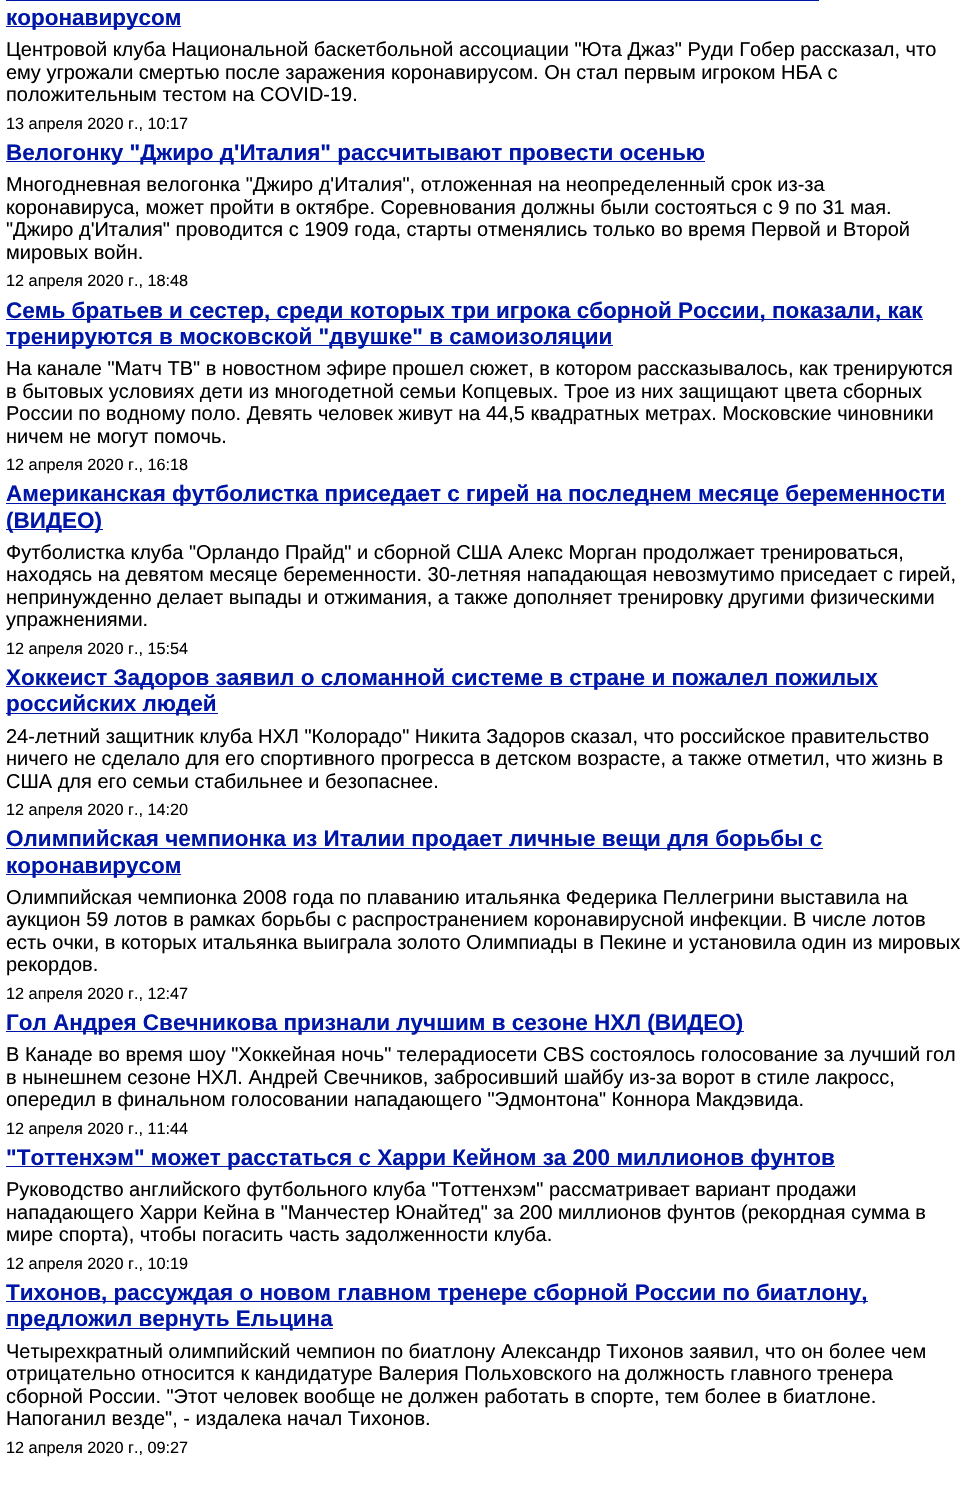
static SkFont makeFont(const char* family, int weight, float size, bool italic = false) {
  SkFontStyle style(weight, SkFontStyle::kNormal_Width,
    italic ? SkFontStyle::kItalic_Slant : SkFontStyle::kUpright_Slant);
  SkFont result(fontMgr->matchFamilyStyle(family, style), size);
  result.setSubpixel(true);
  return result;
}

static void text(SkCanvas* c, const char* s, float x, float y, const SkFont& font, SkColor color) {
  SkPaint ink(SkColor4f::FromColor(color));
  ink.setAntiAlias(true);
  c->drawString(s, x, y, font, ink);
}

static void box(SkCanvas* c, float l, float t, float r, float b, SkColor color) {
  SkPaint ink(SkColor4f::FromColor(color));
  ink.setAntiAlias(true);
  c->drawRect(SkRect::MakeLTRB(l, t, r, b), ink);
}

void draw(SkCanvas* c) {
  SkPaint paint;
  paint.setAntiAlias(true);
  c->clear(0xffffffff);
  box(c, 6, 26, 181, 27, 0xff0016a6);
  SkFont face1 = makeFont("Liberation Sans", 700, 22.5f);
  text(c, "коронавирусом", 6, 25, face1, 0xff0016a6);
  box(c, 6, 0, 819, 1, 0xff0016a6);
  SkFont face2 = makeFont("Liberation Sans", 400, 20);
  text(c, "Центровой клуба Национальной баскетбольной ассоциации \"Юта Джаз\" Руди Гобер рассказал, что", 6, 56, face2, 0xff000000);
  text(c, "ему угрожали смертью после заражения коронавирусом. Он стал первым игроком НБА с", 6, 79, face2, 0xff000000);
  text(c, "положительным тестом на COVID-19.", 6, 101, face2, 0xff000000);
  SkFont face3 = makeFont("Liberation Sans", 400, 16.25f);
  text(c, "13 апреля 2020 г., 10:17", 6, 129, face3, 0xff000000);
  box(c, 6, 161, 705, 162, 0xff0016a6);
  text(c, "Велогонку \"Джиро д'Италия\" рассчитывают провести осенью", 6, 160, face1, 0xff0016a6);
  text(c, "Многодневная велогонка \"Джиро д'Италия\", отложенная на неопределенный срок из-за", 6, 191, face2, 0xff000000);
  text(c, "коронавируса, может пройти в октябре. Соревнования должны были состояться с 9 по 31 мая.", 6, 214, face2, 0xff000000);
  text(c, "\"Джиро д'Италия\" проводится с 1909 года, старты отменялись только во время Первой и Второй", 6, 236, face2, 0xff000000);
  text(c, "мировых войн.", 6, 259, face2, 0xff000000);
  text(c, "12 апреля 2020 г., 18:48", 6, 286, face3, 0xff000000);
  box(c, 6, 319, 923, 320, 0xff0016a6);
  text(c, "Семь братьев и сестер, среди которых три игрока сборной России, показали, как", 6, 318, face1, 0xff0016a6);
  box(c, 6, 345, 613, 346, 0xff0016a6);
  text(c, "тренируются в московской \"двушке\" в самоизоляции", 6, 344, face1, 0xff0016a6);
  text(c, "На канале \"Матч ТВ\" в новостном эфире прошел сюжет, в котором рассказывалось, как тренируются", 6, 375, face2, 0xff000000);
  text(c, "в бытовых условиях дети из многодетной семьи Копцевых. Трое из них защищают цвета сборных", 6, 398, face2, 0xff000000);
  text(c, "России по водному поло. Девять человек живут на 44,5 квадратных метрах. Московские чиновники", 6, 420, face2, 0xff000000);
  text(c, "ничем не могут помочь.", 6, 443, face2, 0xff000000);
  text(c, "12 апреля 2020 г., 16:18", 6, 470, face3, 0xff000000);
  box(c, 6, 503, 946, 504, 0xff0016a6);
  text(c, "Американская футболистка приседает с гирей на последнем месяце беременности", 6, 501, face1, 0xff0016a6);
  box(c, 6, 529, 103, 530, 0xff0016a6);
  text(c, "(ВИДЕО)", 6, 528, face1, 0xff0016a6);
  text(c, "Футболистка клуба \"Орландо Прайд\" и сборной США Алекс Морган продолжает тренироваться,", 6, 559, face2, 0xff000000);
  text(c, "находясь на девятом месяце беременности. 30-летняя нападающая невозмутимо приседает с гирей,", 6, 581, face2, 0xff000000);
  text(c, "непринужденно делает выпады и отжимания, а также дополняет тренировку другими физическими", 6, 604, face2, 0xff000000);
  text(c, "упражнениями.", 6, 626, face2, 0xff000000);
  text(c, "12 апреля 2020 г., 15:54", 6, 654, face3, 0xff000000);
  box(c, 6, 686, 878, 687, 0xff0016a6);
  text(c, "Хоккеист Задоров заявил о сломанной системе в стране и пожалел пожилых", 6, 685, face1, 0xff0016a6);
  box(c, 6, 713, 218, 714, 0xff0016a6);
  text(c, "российских людей", 6, 711, face1, 0xff0016a6);
  text(c, "24-летний защитник клуба НХЛ \"Колорадо\" Никита Задоров сказал, что российское правительство", 6, 743, face2, 0xff000000);
  text(c, "ничего не сделало для его спортивного прогресса в детском возрасте, а также отметил, что жизнь в", 6, 765, face2, 0xff000000);
  text(c, "США для его семьи стабильнее и безопаснее.", 6, 788, face2, 0xff000000);
  text(c, "12 апреля 2020 г., 14:20", 6, 815, face3, 0xff000000);
  box(c, 6, 848, 823, 849, 0xff0016a6);
  text(c, "Олимпийская чемпионка из Италии продает личные вещи для борьбы с", 6, 846, face1, 0xff0016a6);
  box(c, 6, 874, 181, 875, 0xff0016a6);
  text(c, "коронавирусом", 6, 873, face1, 0xff0016a6);
  text(c, "Олимпийская чемпионка 2008 года по плаванию итальянка Федерика Пеллегрини выставила на", 6, 904, face2, 0xff000000);
  text(c, "аукцион 59 лотов в рамках борьбы с распространением коронавирусной инфекции. В числе лотов", 6, 926, face2, 0xff000000);
  text(c, "есть очки, в которых итальянка выиграла золото Олимпиады в Пекине и установила один из мировых", 6, 949, face2, 0xff000000);
  text(c, "рекордов.", 6, 971, face2, 0xff000000);
  text(c, "12 апреля 2020 г., 12:47", 6, 999, face3, 0xff000000);
  box(c, 6, 1031, 744, 1032, 0xff0016a6);
  text(c, "Гол Андрея Свечникова признали лучшим в сезоне НХЛ (ВИДЕО)", 6, 1030, face1, 0xff0016a6);
  text(c, "В Канаде во время шоу \"Хоккейная ночь\" телерадиосети CBS состоялось голосование за лучший гол", 6, 1061, face2, 0xff000000);
  text(c, "в нынешнем сезоне НХЛ. Андрей Свечников, забросивший шайбу из-за ворот в стиле лакросс,", 6, 1084, face2, 0xff000000);
  text(c, "опередил в финальном голосовании нападающего \"Эдмонтона\" Коннора Макдэвида.", 6, 1106, face2, 0xff000000);
  text(c, "12 апреля 2020 г., 11:44", 6, 1134, face3, 0xff000000);
  box(c, 6, 1166, 835, 1167, 0xff0016a6);
  text(c, "\"Тоттенхэм\" может расстаться с Харри Кейном за 200 миллионов фунтов", 6, 1165, face1, 0xff0016a6);
  text(c, "Руководство английского футбольного клуба \"Тоттенхэм\" рассматривает вариант продажи", 6, 1196, face2, 0xff000000);
  text(c, "нападающего Харри Кейна в \"Манчестер Юнайтед\" за 200 миллионов фунтов (рекордная сумма в", 6, 1219, face2, 0xff000000);
  text(c, "мире спорта), чтобы погасить часть задолженности клуба.", 6, 1241, face2, 0xff000000);
  text(c, "12 апреля 2020 г., 10:19", 6, 1269, face3, 0xff000000);
  box(c, 6, 1301, 868, 1302, 0xff0016a6);
  text(c, "Тихонов, рассуждая о новом главном тренере сборной России по биатлону,", 6, 1300, face1, 0xff0016a6);
  box(c, 6, 1328, 333, 1329, 0xff0016a6);
  text(c, "предложил вернуть Ельцина", 6, 1326, face1, 0xff0016a6);
  text(c, "Четырехкратный олимпийский чемпион по биатлону Александр Тихонов заявил, что он более чем", 6, 1358, face2, 0xff000000);
  text(c, "отрицательно относится к кандидатуре Валерия Польховского на должность главного тренера", 6, 1380, face2, 0xff000000);
  text(c, "сборной России. \"Этот человек вообще не должен работать в спорте, тем более в биатлоне.", 6, 1403, face2, 0xff000000);
  text(c, "Напоганил везде\", - издалека начал Тихонов.", 6, 1425, face2, 0xff000000);
  text(c, "12 апреля 2020 г., 09:27", 6, 1453, face3, 0xff000000);
}
